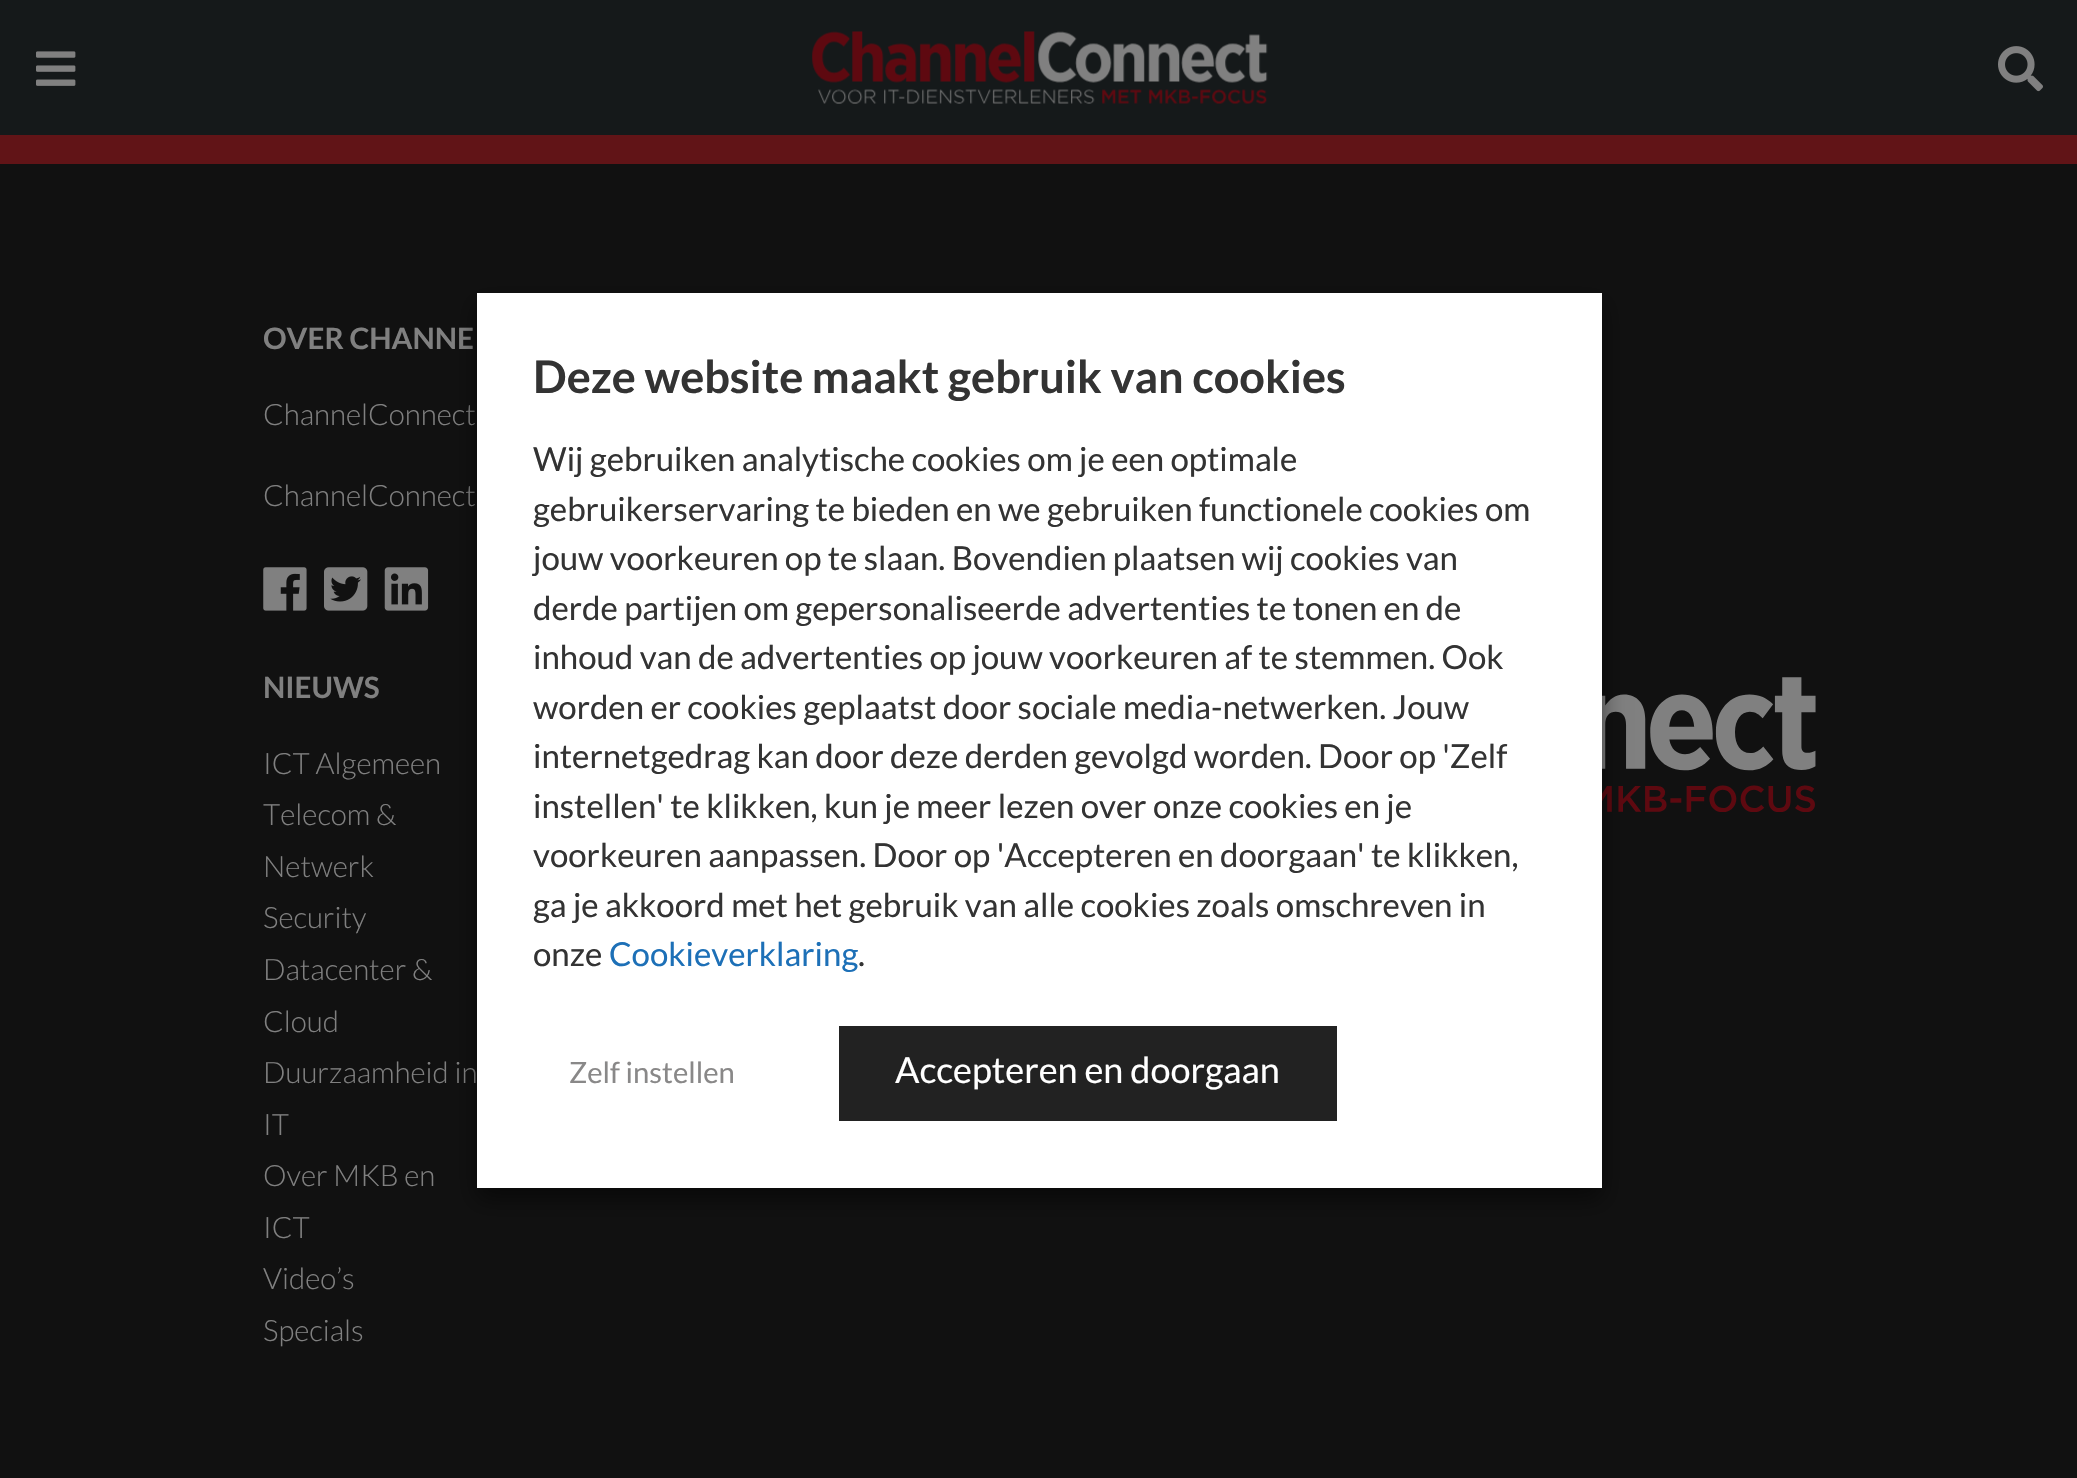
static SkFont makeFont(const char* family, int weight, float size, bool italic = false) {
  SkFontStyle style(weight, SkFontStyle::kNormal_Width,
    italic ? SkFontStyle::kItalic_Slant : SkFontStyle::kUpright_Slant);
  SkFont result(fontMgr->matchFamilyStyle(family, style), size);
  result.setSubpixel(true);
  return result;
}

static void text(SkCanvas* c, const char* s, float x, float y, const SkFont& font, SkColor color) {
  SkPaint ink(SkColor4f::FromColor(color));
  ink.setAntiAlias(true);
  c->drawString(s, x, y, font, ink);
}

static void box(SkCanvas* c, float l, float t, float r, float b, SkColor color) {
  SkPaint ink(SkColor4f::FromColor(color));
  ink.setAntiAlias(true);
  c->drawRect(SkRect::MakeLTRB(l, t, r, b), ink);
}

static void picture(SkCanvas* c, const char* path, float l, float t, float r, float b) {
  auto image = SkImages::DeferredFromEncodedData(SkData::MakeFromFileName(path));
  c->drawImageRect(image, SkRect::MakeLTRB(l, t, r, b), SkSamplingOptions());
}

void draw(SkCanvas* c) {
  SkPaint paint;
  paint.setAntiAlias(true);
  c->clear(0xff611417);
  box(c, 0, 0, 2077, 135, 0xff15191a);
  picture(c, "img_01.png", 36, 51, 76, 86);
  picture(c, "img_02.png", 812, 31, 1268, 104);
  picture(c, "img_03.png", 1998, 46, 2043, 92);
  box(c, 0, 164, 2077, 1478, 0xff111111);
  SkFont face1 = makeFont("Lato", 700, 29.5f);
  text(c, "OVER CHANNE", 263, 349, face1, 0xff808080);
  SkFont face2 = makeFont("Lato", 300, 29.5f);
  text(c, "ChannelConnect", 263, 425, face2, 0xff808080);
  text(c, "ChannelConnect", 263, 506, face2, 0xff808080);
  picture(c, "img_04.png", 263, 567, 307, 611);
  picture(c, "img_05.png", 324, 567, 368, 611);
  picture(c, "img_06.png", 384, 567, 429, 611);
  text(c, "NIEUWS", 263, 698, face1, 0xff808080);
  text(c, "ICT Algemeen", 263, 774, face2, 0xff808080);
  text(c, "Telecom &", 263, 825, face2, 0xff808080);
  text(c, "Netwerk", 263, 877, face2, 0xff808080);
  text(c, "Security", 263, 928, face2, 0xff808080);
  text(c, "Datacenter &", 263, 980, face2, 0xff808080);
  text(c, "Cloud", 263, 1032, face2, 0xff808080);
  text(c, "Duurzaamheid in", 263, 1083, face2, 0xff808080);
  text(c, "IT", 263, 1135, face2, 0xff808080);
  text(c, "Over MKB en", 263, 1186, face2, 0xff808080);
  text(c, "ICT", 263, 1238, face2, 0xff808080);
  text(c, "Video’s", 263, 1289, face2, 0xff808080);
  text(c, "Specials", 263, 1341, face2, 0xff808080);
  picture(c, "img_07.png", 1602, 677, 1816, 812);
  paint.setColor(0x80000000);
  paint.setMaskFilter(SkMaskFilter::MakeBlur(kNormal_SkBlurStyle, 11));
  c->drawRect(SkRect::MakeLTRB(477, 304, 1602, 1199), paint);
  paint.setMaskFilter(nullptr);
  box(c, 477, 293, 1602, 1188, 0xffffffff);
  SkFont face3 = makeFont("Lato", 700, 45);
  text(c, "Deze website maakt gebruik van cookies", 533, 393, face3, 0xff333333);
  SkFont face4 = makeFont("Lato", 400, 33);
  text(c, "Wij gebruiken analytische cookies om je een optimale", 533, 471, face4, 0xff333333);
  text(c, "gebruikerservaring te bieden en we gebruiken functionele cookies om", 533, 521, face4, 0xff333333);
  text(c, "jouw voorkeuren op te slaan. Bovendien plaatsen wij cookies van", 533, 570, face4, 0xff333333);
  text(c, "derde partijen om gepersonaliseerde advertenties te tonen en de", 533, 620, face4, 0xff333333);
  text(c, "inhoud van de advertenties op jouw voorkeuren af te stemmen. Ook", 533, 669, face4, 0xff333333);
  text(c, "worden er cookies geplaatst door sociale media-netwerken. Jouw", 533, 719, face4, 0xff333333);
  text(c, "internetgedrag kan door deze derden gevolgd worden. Door op 'Zelf", 533, 768, face4, 0xff333333);
  text(c, "instellen' te klikken, kun je meer lezen over onze cookies en je", 533, 818, face4, 0xff333333);
  text(c, "voorkeuren aanpassen. Door op 'Accepteren en doorgaan' te klikken,", 533, 867, face4, 0xff333333);
  text(c, "ga je akkoord met het gebruik van alle cookies zoals omschreven in", 533, 917, face4, 0xff333333);
  text(c, "onze", 533, 966, face4, 0xff333333);
  text(c, "Cookieverklaring", 609, 966, face4, 0xff1d70b7);
  text(c, ".", 858, 966, face4, 0xff333333);
  SkFont face5 = makeFont("Lato", 400, 29.25f);
  text(c, "Zelf instellen", 569, 1083, face5, 0xff898888);
  box(c, 839, 1026, 1337, 1121, 0xff222222);
  SkFont face6 = makeFont("Lato", 400, 36);
  text(c, "Accepteren en doorgaan", 895, 1083, face6, 0xffffffff);
}
